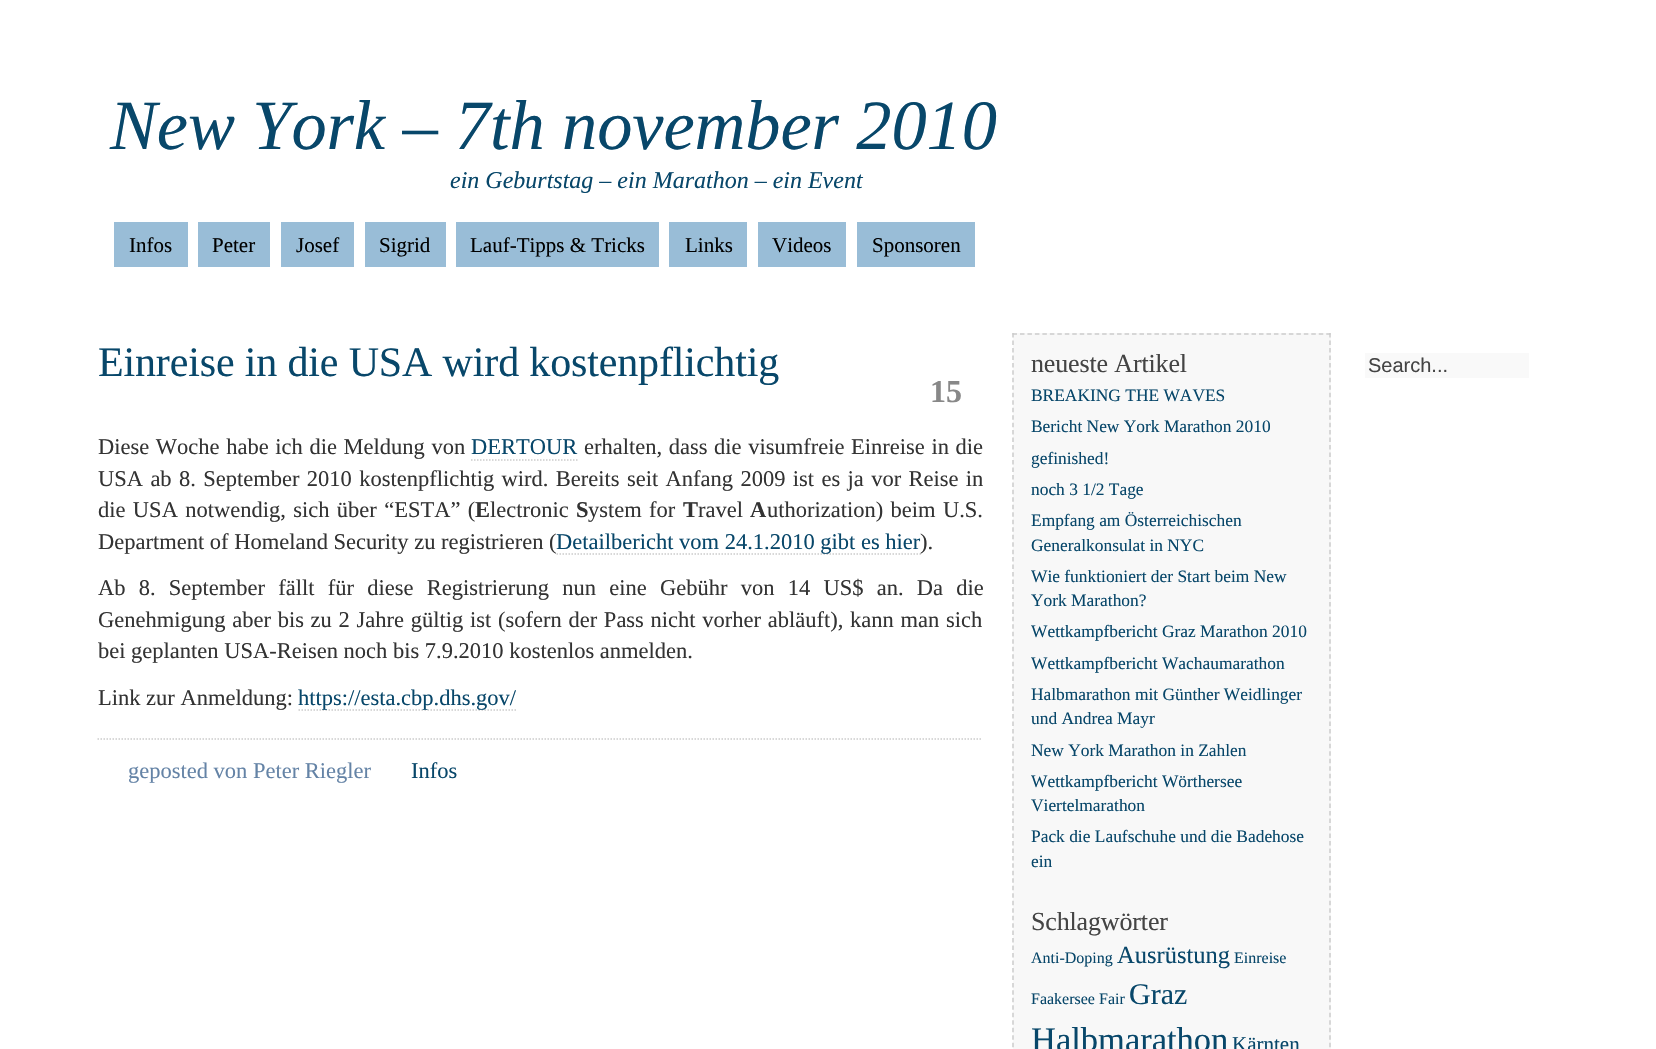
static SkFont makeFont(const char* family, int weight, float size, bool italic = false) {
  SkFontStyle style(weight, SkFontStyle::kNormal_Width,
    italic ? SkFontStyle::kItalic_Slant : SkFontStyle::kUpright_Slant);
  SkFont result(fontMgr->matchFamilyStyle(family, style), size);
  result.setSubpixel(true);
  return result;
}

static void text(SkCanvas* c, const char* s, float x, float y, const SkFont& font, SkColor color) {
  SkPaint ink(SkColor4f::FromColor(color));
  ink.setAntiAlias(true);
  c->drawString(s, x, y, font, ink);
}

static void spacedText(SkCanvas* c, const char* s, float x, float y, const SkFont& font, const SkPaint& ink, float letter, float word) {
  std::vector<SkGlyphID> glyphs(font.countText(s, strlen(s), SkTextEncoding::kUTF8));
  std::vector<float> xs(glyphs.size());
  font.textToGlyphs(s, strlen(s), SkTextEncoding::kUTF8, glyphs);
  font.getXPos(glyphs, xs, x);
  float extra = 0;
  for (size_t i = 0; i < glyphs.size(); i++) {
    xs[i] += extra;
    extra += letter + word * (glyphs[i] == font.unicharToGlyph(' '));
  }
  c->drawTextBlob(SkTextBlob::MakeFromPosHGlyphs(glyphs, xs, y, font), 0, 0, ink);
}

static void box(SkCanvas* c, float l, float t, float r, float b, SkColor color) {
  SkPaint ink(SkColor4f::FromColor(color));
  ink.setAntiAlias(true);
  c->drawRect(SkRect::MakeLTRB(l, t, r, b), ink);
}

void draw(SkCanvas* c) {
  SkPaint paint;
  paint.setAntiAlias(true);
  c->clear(0xffffffff);
  SkFont face1 = makeFont("Liberation Serif", 400, 70.5f, true);
  paint.setColor(0xff08476a);
  spacedText(c, "New York – 7th november 2010", 110, 149, face1, paint, -0.15f, 0);
  SkFont face2 = makeFont("Liberation Serif", 400, 24, true);
  text(c, "ein Geburtstag – ein Marathon – ein Event", 450, 188, face2, 0xff08476a);
  box(c, 114, 222, 188, 267, 0xff99bdd7);
  SkFont face3 = makeFont("Liberation Serif", 400, 21);
  text(c, "Infos", 129, 252, face3, 0xff000000);
  box(c, 198, 222, 270, 267, 0xff99bdd7);
  text(c, "Peter", 212, 252, face3, 0xff000000);
  box(c, 281, 222, 354, 267, 0xff99bdd7);
  text(c, "Josef", 296, 252, face3, 0xff000000);
  box(c, 365, 222, 446, 267, 0xff99bdd7);
  text(c, "Sigrid", 379, 252, face3, 0xff000000);
  box(c, 456, 222, 659, 267, 0xff99bdd7);
  text(c, "Lauf-Tipps & Tricks", 470, 252, face3, 0xff000000);
  box(c, 669, 222, 747, 267, 0xff99bdd7);
  text(c, "Links", 685, 252, face3, 0xff000000);
  box(c, 758, 222, 846, 267, 0xff99bdd7);
  text(c, "Videos", 772, 252, face3, 0xff000000);
  box(c, 857, 222, 975, 267, 0xff99bdd7);
  text(c, "Sponsoren", 872, 252, face3, 0xff000000);
  SkFont face4 = makeFont("Liberation Serif", 400, 42);
  spacedText(c, "Einreise in die USA wird kostenpflichtig", 98, 376, face4, paint, -0.15f, 0);
  SkFont face5 = makeFont("Liberation Serif", 700, 32);
  text(c, "15", 930, 402, face5, 0xff888888);
  SkFont face6 = makeFont("Liberation Serif", 400, 22.5f);
  paint.setColor(0xff333333);
  spacedText(c, "Diese Woche habe ich die Meldung von", 98, 454, face6, paint, 0, 1);
  text(c, "DERTOUR", 471, 454, face6, 0xff08476a);
  paint.setStyle(SkPaint::kStroke_Style);
  paint.setStrokeWidth(1.5f);
  paint.setColor(0xffcccccc);
  paint.setPathEffect(SkDashPathEffect::Make({{1.5f, 1.5f}}, 0));
  c->drawPath(SkPathBuilder().moveTo(471, 460).lineTo(577.5f, 460).detach(), paint);
  paint.setPathEffect(nullptr);
  paint.setStyle(SkPaint::kFill_Style);
  paint.setColor(0xff333333);
  spacedText(c, "erhalten, dass die visumfreie Einreise in die", 584, 454, face6, paint, 0, 1);
  spacedText(c, "USA ab 8. September 2010 kostenpflichtig wird. Bereits seit Anfang 2009 ist es ja vor Reise in", 98, 486, face6, paint, 0, 1.75f);
  spacedText(c, "die USA notwendig, sich über “ESTA” (", 98, 517, face6, paint, 0, 1.75f);
  SkFont face7 = makeFont("Liberation Serif", 700, 22.5f);
  text(c, "E", 475, 517, face7, 0xff333333);
  text(c, "lectronic", 490, 517, face6, 0xff333333);
  text(c, "S", 576, 517, face7, 0xff333333);
  spacedText(c, "ystem for", 588, 517, face6, paint, 0, 1.75f);
  text(c, "T", 683, 517, face7, 0xff333333);
  text(c, "ravel", 698, 517, face6, 0xff333333);
  text(c, "A", 750, 517, face7, 0xff333333);
  spacedText(c, "uthorization) beim U.S.", 767, 517, face6, paint, 0, 1.75f);
  text(c, "Department of Homeland Security zu registrieren (", 98, 549, face6, 0xff333333);
  paint.setStyle(SkPaint::kStroke_Style);
  paint.setColor(0xffcccccc);
  paint.setPathEffect(SkDashPathEffect::Make({{1.5f, 1.5f}}, 0));
  c->drawPath(SkPathBuilder().moveTo(556.5f, 554).lineTo(921, 554).detach(), paint);
  paint.setPathEffect(nullptr);
  text(c, "Detailbericht vom 24.1.2010 gibt es hier", 556, 549, face6, 0xff08476a);
  text(c, ").", 920, 549, face6, 0xff333333);
  paint.setStyle(SkPaint::kFill_Style);
  paint.setColor(0xff333333);
  spacedText(c, "Ab 8. September fällt für diese Registrierung nun eine Gebühr von 14 US$ an. Da die", 98, 595, face6, paint, 0, 7.6f);
  spacedText(c, "Genehmigung aber bis zu 2 Jahre gültig ist (sofern der Pass nicht vorher abläuft), kann man sich", 98, 627, face6, paint, 0, 1.1f);
  text(c, "bei geplanten USA-Reisen noch bis 7.9.2010 kostenlos anmelden.", 98, 658, face6, 0xff333333);
  text(c, "Link zur Anmeldung:", 98, 705, face6, 0xff333333);
  paint.setStyle(SkPaint::kStroke_Style);
  paint.setColor(0xffcccccc);
  paint.setPathEffect(SkDashPathEffect::Make({{1.5f, 1.5f}}, 0));
  c->drawPath(SkPathBuilder().moveTo(298.5f, 710).lineTo(516, 710).detach(), paint);
  paint.setPathEffect(nullptr);
  text(c, "https://esta.cbp.dhs.gov/", 298, 705, face6, 0xff08476a);
  paint.setPathEffect(SkDashPathEffect::Make({{1.5f, 1.5f}}, 0));
  c->drawPath(SkPathBuilder().moveTo(97.5f, 739).lineTo(982.5f, 739).detach(), paint);
  paint.setPathEffect(nullptr);
  text(c, "geposted von Peter Riegler", 128, 778, face6, 0xff6483a6);
  text(c, "Infos", 411, 778, face6, 0xff08476a);
  box(c, 1013, 333, 1331, 1049, 0xfff8f8f8);
  paint.setPathEffect(SkDashPathEffect::Make({{4.5f, 2.97f}}, 0));
  c->drawPath(SkPathBuilder().moveTo(1012.5f, 334).lineTo(1330.5f, 334).detach(), paint);
  paint.setPathEffect(nullptr);
  paint.setPathEffect(SkDashPathEffect::Make({{4.5f, 2.97f}}, 0));
  c->drawPath(SkPathBuilder().moveTo(1330, 333).lineTo(1330, 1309.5f).detach(), paint);
  paint.setPathEffect(nullptr);
  paint.setPathEffect(SkDashPathEffect::Make({{4.5f, 2.97f}}, 0));
  c->drawPath(SkPathBuilder().moveTo(1013, 333).lineTo(1013, 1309.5f).detach(), paint);
  paint.setPathEffect(nullptr);
  SkFont face8 = makeFont("Liberation Serif", 400, 26);
  paint.setStyle(SkPaint::kFill_Style);
  paint.setColor(0xff444444);
  spacedText(c, "neueste Artikel", 1031, 372, face8, paint, -0.15f, 0);
  SkFont face9 = makeFont("Liberation Serif", 400, 17.4f);
  text(c, "BREAKING THE WAVES", 1031, 401, face9, 0xff08476a);
  text(c, "Bericht New York Marathon 2010", 1031, 432, face9, 0xff08476a);
  text(c, "gefinished!", 1031, 464, face9, 0xff08476a);
  text(c, "noch 3 1/2 Tage", 1031, 495, face9, 0xff08476a);
  text(c, "Empfang am Österreichischen", 1031, 526, face9, 0xff08476a);
  text(c, "Generalkonsulat in NYC", 1031, 551, face9, 0xff08476a);
  text(c, "Wie funktioniert der Start beim New", 1031, 582, face9, 0xff08476a);
  text(c, "York Marathon?", 1031, 606, face9, 0xff08476a);
  text(c, "Wettkampfbericht Graz Marathon 2010", 1031, 637, face9, 0xff08476a);
  text(c, "Wettkampfbericht Wachaumarathon", 1031, 669, face9, 0xff08476a);
  text(c, "Halbmarathon mit Günther Weidlinger", 1031, 700, face9, 0xff08476a);
  text(c, "und Andrea Mayr", 1031, 724, face9, 0xff08476a);
  text(c, "New York Marathon in Zahlen", 1031, 756, face9, 0xff08476a);
  text(c, "Wettkampfbericht Wörthersee", 1031, 787, face9, 0xff08476a);
  text(c, "Viertelmarathon", 1031, 811, face9, 0xff08476a);
  text(c, "Pack die Laufschuhe und die Badehose", 1031, 842, face9, 0xff08476a);
  text(c, "ein", 1031, 867, face9, 0xff08476a);
  spacedText(c, "Schlagwörter", 1031, 930, face8, paint, -0.15f, 0);
  SkFont face10 = makeFont("Liberation Serif", 400, 16);
  text(c, "Anti-Doping", 1031, 963, face10, 0xff08476a);
  SkFont face11 = makeFont("Liberation Serif", 400, 24.5f);
  text(c, "Ausrüstung", 1117, 963, face11, 0xff08476a);
  text(c, "Einreise", 1234, 963, face10, 0xff08476a);
  text(c, "Faakersee", 1031, 1004, face10, 0xff08476a);
  text(c, "Fair", 1099, 1004, face10, 0xff08476a);
  SkFont face12 = makeFont("Liberation Serif", 400, 30);
  text(c, "Graz", 1129, 1004, face12, 0xff08476a);
  SkFont face13 = makeFont("Liberation Serif", 400, 34.5f);
  text(c, "Halbmarathon", 1031, 1051, face13, 0xff08476a);
  text(c, "Kärnten", 1232, 1051, face3, 0xff08476a);
  box(c, 1365, 353, 1529, 378, 0xfff9f9f9);
  SkFont face14 = makeFont("Liberation Sans", 400, 20);
  text(c, "Search...", 1368, 372, face14, 0xff444444);
}
